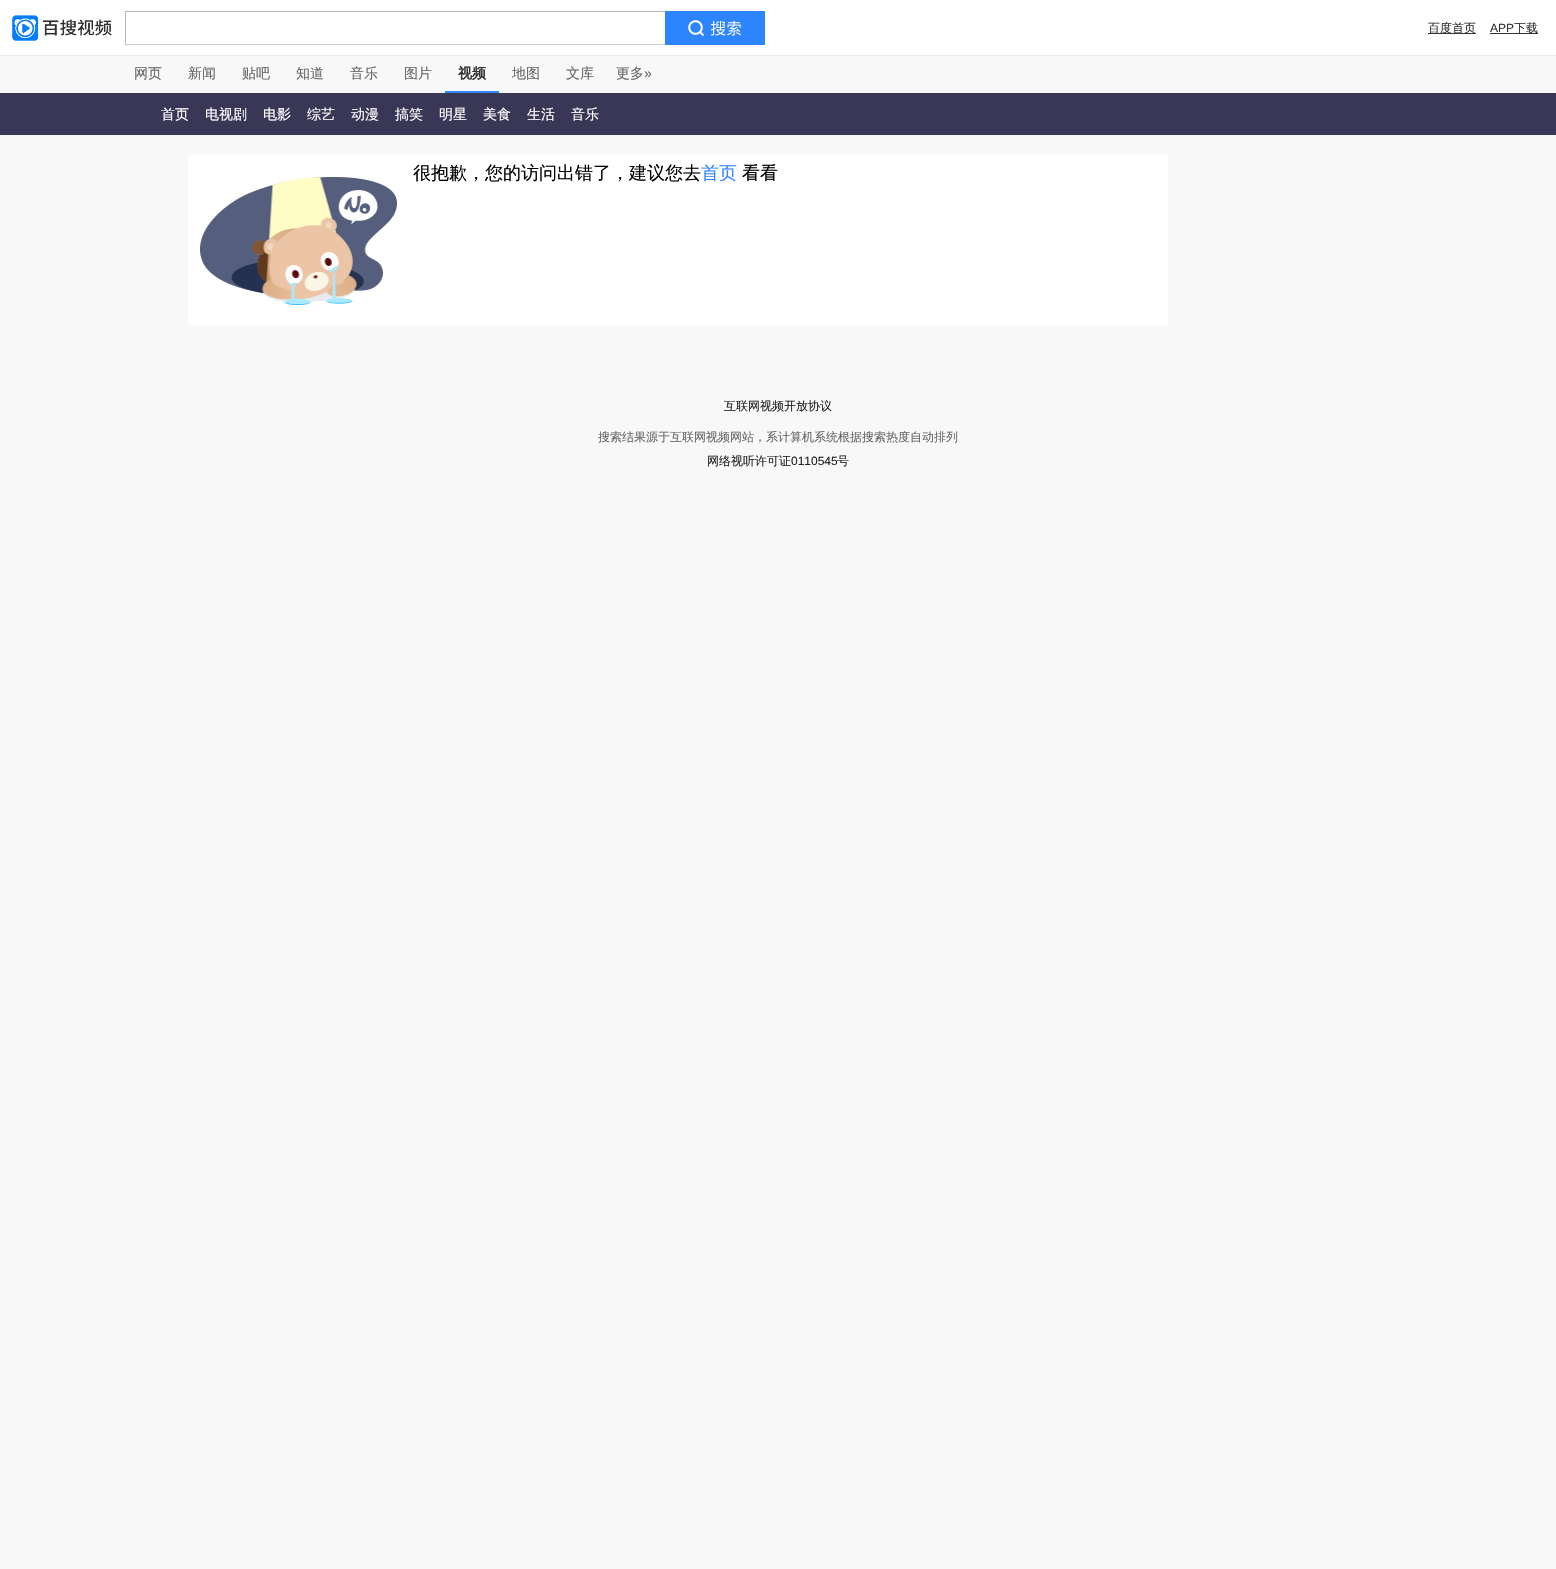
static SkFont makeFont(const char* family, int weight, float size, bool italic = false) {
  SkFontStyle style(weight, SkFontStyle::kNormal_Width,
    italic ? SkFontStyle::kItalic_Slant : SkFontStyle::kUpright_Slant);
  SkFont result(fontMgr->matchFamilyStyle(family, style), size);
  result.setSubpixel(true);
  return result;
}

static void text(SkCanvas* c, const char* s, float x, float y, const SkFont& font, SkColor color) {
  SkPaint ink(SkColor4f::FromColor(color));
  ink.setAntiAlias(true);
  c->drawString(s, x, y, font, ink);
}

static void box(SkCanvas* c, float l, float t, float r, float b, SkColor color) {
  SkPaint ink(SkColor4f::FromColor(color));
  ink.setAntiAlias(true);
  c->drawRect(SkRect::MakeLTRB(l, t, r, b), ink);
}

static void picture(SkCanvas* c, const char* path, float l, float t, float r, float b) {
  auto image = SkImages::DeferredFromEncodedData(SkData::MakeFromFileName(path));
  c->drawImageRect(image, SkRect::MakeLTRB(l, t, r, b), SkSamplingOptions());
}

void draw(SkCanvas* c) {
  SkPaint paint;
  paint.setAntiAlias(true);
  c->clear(0xfff8f8f8);
  box(c, 0, 0, 1556, 55, 0xffffffff);
  box(c, 0, 55, 1556, 56, 0xffebebeb);
  picture(c, "img_01.png", 12, 15, 112, 41);
  box(c, 125, 11, 665, 12, 0xffb8b8b8);
  box(c, 125, 44, 665, 45, 0xffcccccc);
  box(c, 125, 11, 126, 45, 0xffb8b8b8);
  picture(c, "img_02.png", 665, 11, 765, 45);
  box(c, 1428, 33, 1476, 34, 0xff333333);
  SkFont face1 = makeFont("WenQuanYi Zen Hei", 500, 12);
  text(c, "百度首页", 1428, 32, face1, 0xff323232);
  SkFont face2 = makeFont("Liberation Sans", 400, 12);
  text(c, "APP", 1490, 32, face2, 0xff323232);
  box(c, 1490, 33, 1538, 34, 0xff333333);
  text(c, "下载", 1514, 32, face1, 0xff323232);
  SkFont face3 = makeFont("WenQuanYi Zen Hei", 500, 14);
  text(c, "网页", 134, 78, face3, 0xff666666);
  text(c, "新闻", 188, 78, face3, 0xff666666);
  text(c, "贴吧", 242, 78, face3, 0xff666666);
  text(c, "知道", 296, 78, face3, 0xff666666);
  text(c, "音乐", 350, 78, face3, 0xff666666);
  text(c, "图片", 404, 78, face3, 0xff666666);
  box(c, 445, 91, 499, 93, 0xff3388ff);
  SkFont face4 = makeFont("WenQuanYi Zen Hei", 700, 14);
  text(c, "视频", 458, 78, face4, 0xff323232);
  text(c, "地图", 512, 78, face3, 0xff666666);
  text(c, "文库", 566, 78, face3, 0xff666666);
  text(c, "更多", 616, 78, face3, 0xff666666);
  SkFont face5 = makeFont("Liberation Sans", 400, 14);
  text(c, "»", 644, 78, face5, 0xff666666);
  box(c, 0, 93, 1556, 135, 0xff393755);
  text(c, "首页", 161, 119, face3, 0xffffffff);
  text(c, "电视剧", 205, 119, face3, 0xffffffff);
  text(c, "电影", 263, 119, face3, 0xffffffff);
  text(c, "综艺", 307, 119, face3, 0xffffffff);
  text(c, "动漫", 351, 119, face3, 0xffffffff);
  text(c, "搞笑", 395, 119, face3, 0xffffffff);
  text(c, "明星", 439, 119, face3, 0xffffffff);
  text(c, "美食", 483, 119, face3, 0xffffffff);
  text(c, "生活", 527, 119, face3, 0xffffffff);
  text(c, "音乐", 571, 119, face3, 0xffffffff);
  box(c, 188, 155, 1168, 325, 0xffffffff);
  SkFont face6 = makeFont("WenQuanYi Zen Hei", 500, 18);
  text(c, "很抱歉，您的访问出错了，建议您去", 413, 179, face6, 0xff000000);
  text(c, "首页", 701, 179, face6, 0xff3385ff);
  text(c, "看看", 742, 179, face6, 0xff000000);
  picture(c, "img_03.png", 200, 177, 397, 305);
  text(c, "互联网视频开放协议", 724, 410, face1, 0xff222222);
  text(c, "搜索结果源于互联网视频网站，系计算机系统根据搜索热度自动排列", 598, 441, face1, 0xff666666);
  text(c, "网络视听许可证", 707, 465, face1, 0xff222222);
  text(c, "0110545", 791, 465, face2, 0xff222222);
  text(c, "号", 837, 465, face1, 0xff222222);
}
